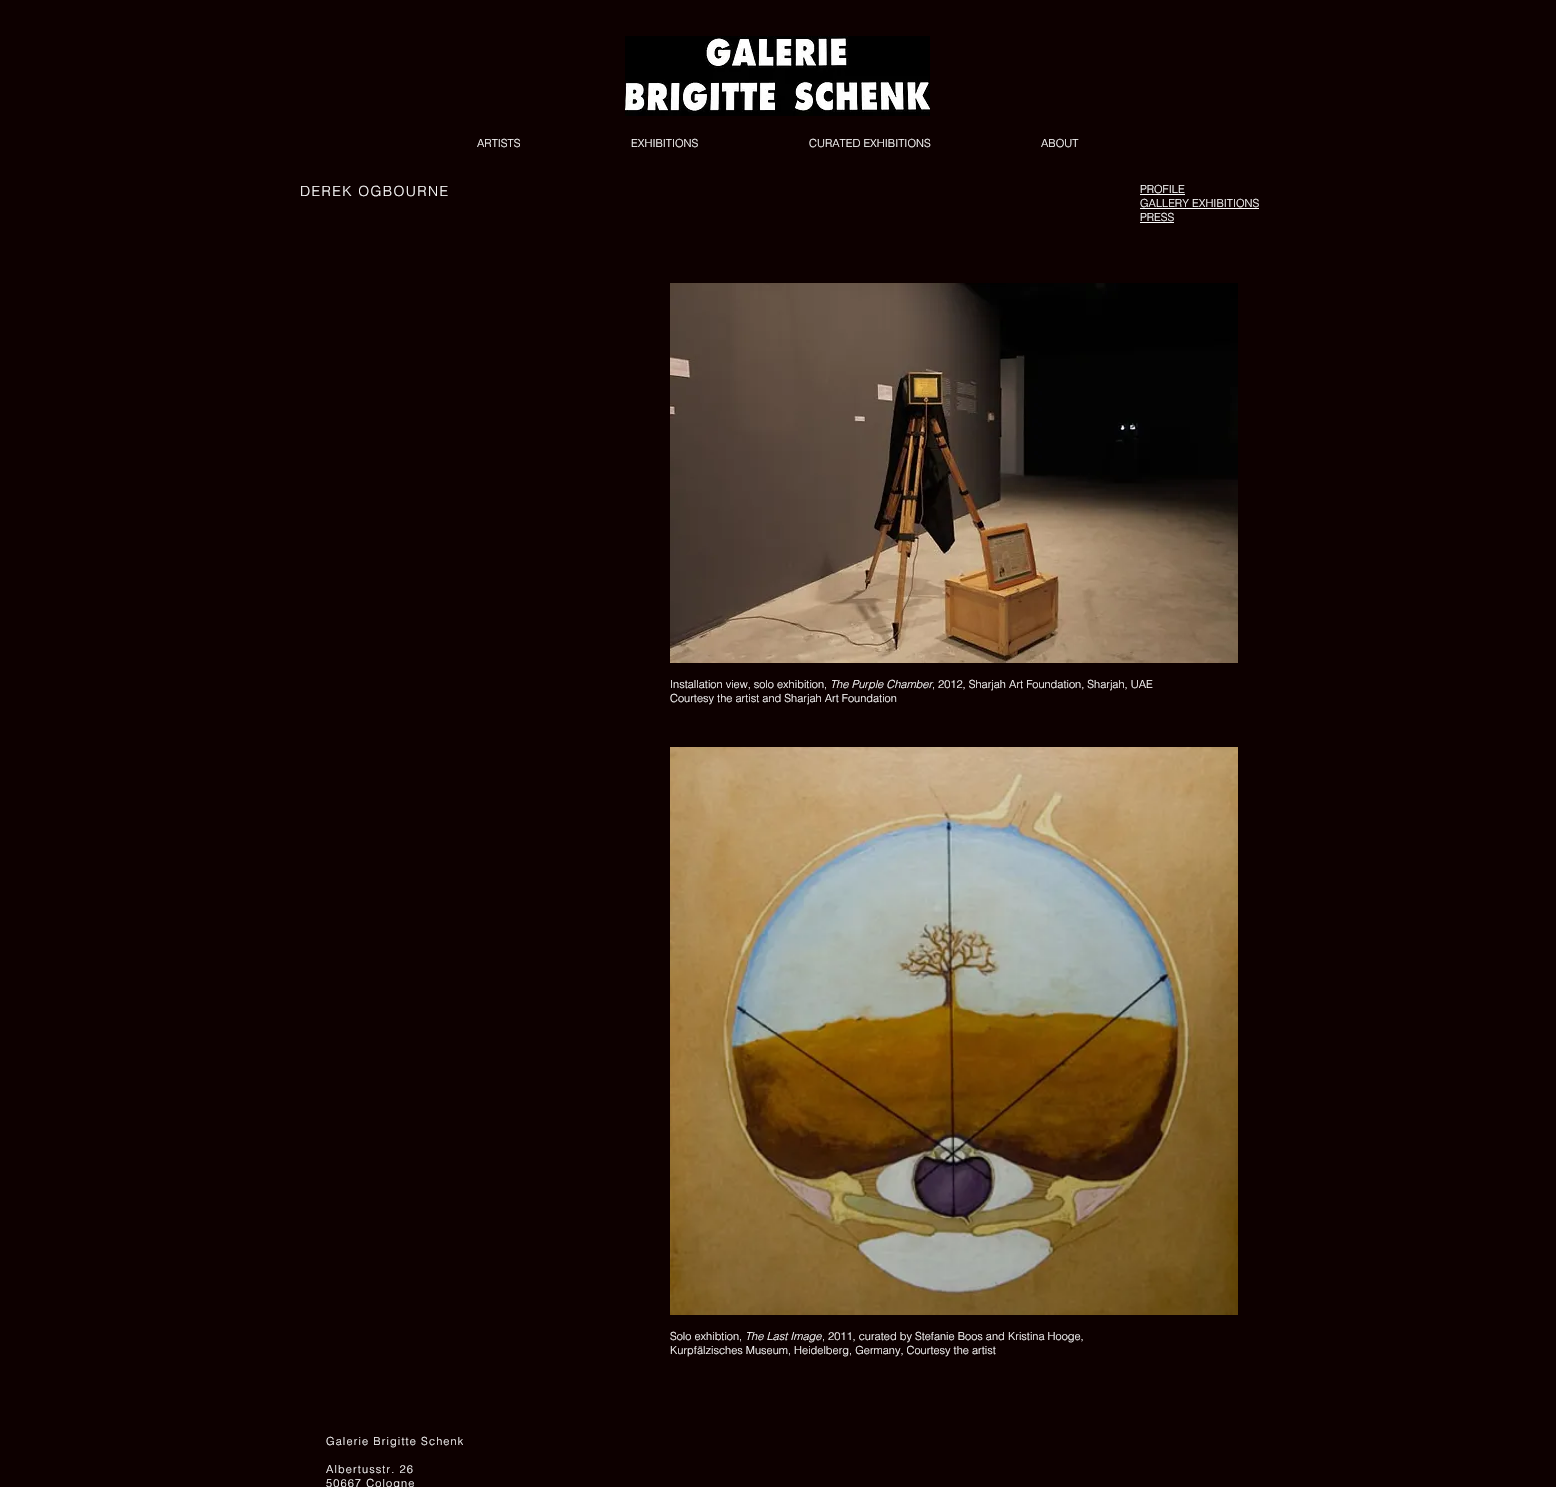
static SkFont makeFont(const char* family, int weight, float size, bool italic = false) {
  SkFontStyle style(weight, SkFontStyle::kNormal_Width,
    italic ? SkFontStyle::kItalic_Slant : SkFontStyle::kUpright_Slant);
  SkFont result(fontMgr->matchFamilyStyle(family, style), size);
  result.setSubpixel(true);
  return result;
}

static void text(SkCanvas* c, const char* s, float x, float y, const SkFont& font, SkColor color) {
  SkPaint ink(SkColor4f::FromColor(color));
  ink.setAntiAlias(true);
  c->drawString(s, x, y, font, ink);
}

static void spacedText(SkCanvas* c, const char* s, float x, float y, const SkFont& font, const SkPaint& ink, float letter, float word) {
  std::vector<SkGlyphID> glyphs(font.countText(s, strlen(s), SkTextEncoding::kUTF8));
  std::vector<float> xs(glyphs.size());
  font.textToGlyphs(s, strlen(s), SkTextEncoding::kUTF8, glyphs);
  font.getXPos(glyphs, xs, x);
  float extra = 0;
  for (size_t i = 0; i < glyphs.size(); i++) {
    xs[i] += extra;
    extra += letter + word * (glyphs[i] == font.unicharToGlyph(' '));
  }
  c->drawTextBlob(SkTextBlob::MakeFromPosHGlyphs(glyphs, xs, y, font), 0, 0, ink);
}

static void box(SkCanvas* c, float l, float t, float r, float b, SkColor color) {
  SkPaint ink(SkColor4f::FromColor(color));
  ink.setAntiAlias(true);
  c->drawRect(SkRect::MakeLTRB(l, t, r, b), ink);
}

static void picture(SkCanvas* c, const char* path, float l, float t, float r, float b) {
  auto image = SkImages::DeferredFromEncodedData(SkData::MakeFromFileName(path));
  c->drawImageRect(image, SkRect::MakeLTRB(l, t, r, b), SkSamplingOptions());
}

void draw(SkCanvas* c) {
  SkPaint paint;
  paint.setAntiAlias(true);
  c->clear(0xff0d0000);
  picture(c, "img_01.png", 625, 36, 930, 116);
  SkFont face1 = makeFont("helvetica", 300, 11);
  text(c, "ARTISTS", 477, 147, face1, 0xffffffff);
  text(c, "EXHIBITIONS", 631, 147, face1, 0xffffffff);
  text(c, "CURATED EXHIBITIONS", 809, 147, face1, 0xffffffff);
  text(c, "ABOUT", 1041, 147, face1, 0xffffffff);
  SkFont face2 = makeFont("helvetica", 300, 14);
  paint.setColor(0xffffffff);
  spacedText(c, "DEREK OGBOURNE", 300, 196, face2, paint, 1.4f, 0);
  text(c, "PROFILE", 1140, 193, face1, 0xffffffff);
  box(c, 1140, 194, 1185, 195, 0xffffffff);
  text(c, "GALLERY EXHIBITIONS", 1140, 207, face1, 0xffffffff);
  box(c, 1140, 208, 1259, 209, 0xffffffff);
  text(c, "PRESS", 1140, 221, face1, 0xffffffff);
  box(c, 1140, 222, 1174, 223, 0xffffffff);
  picture(c, "img_02.png", 670, 283, 1238, 663);
  text(c, "Installation view, solo exhibition,", 670, 688, face1, 0xffffffff);
  SkFont face3 = makeFont("helvetica", 300, 11, true);
  text(c, "The Purple Chamber", 830, 688, face3, 0xffffffff);
  text(c, ", 2012, Sharjah Art Foundation, Sharjah, UAE", 932, 688, face1, 0xffffffff);
  text(c, "Courtesy the artist and Sharjah Art Foundation", 670, 702, face1, 0xffffffff);
  picture(c, "img_03.png", 670, 747, 1238, 1315);
  text(c, "Solo exhibtion,", 670, 1340, face1, 0xffffffff);
  text(c, "The Last Image", 745, 1340, face3, 0xffffffff);
  text(c, ", 2011, curated by Stefanie Boos and Kristina Hooge,", 822, 1340, face1, 0xffffffff);
  text(c, "Kurpfälzisches Museum, Heidelberg, Germany, Courtesy the artist", 670, 1354, face1, 0xffffffff);
  spacedText(c, "Galerie Brigitte Schenk", 326, 1445, face1, paint, 1.1f, 0);
  spacedText(c, "Albertusstr. 26", 326, 1473, face1, paint, 1.1f, 0);
  spacedText(c, "50667 Cologne", 326, 1487, face1, paint, 1.1f, 0);
}
